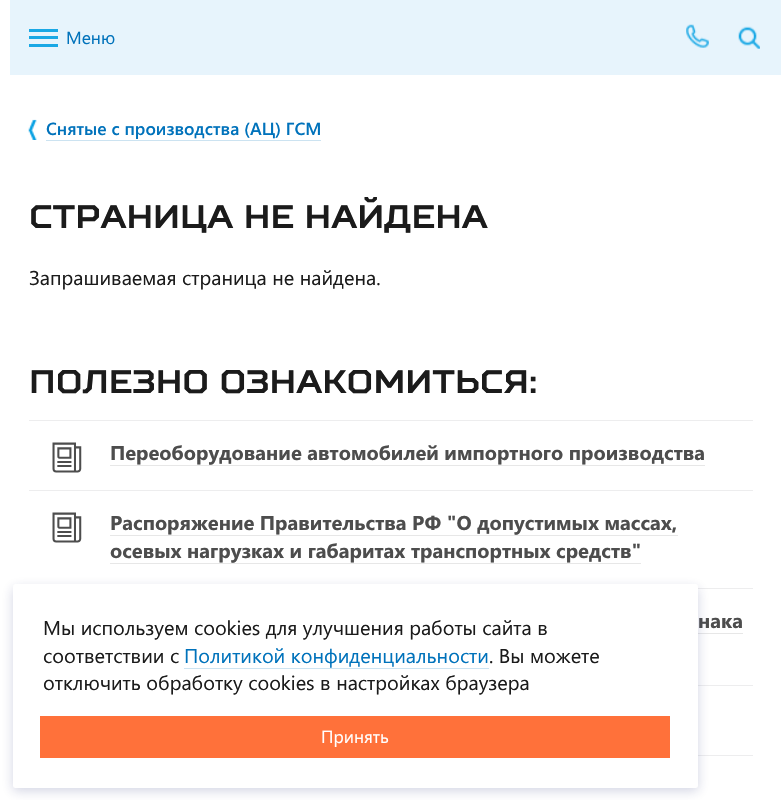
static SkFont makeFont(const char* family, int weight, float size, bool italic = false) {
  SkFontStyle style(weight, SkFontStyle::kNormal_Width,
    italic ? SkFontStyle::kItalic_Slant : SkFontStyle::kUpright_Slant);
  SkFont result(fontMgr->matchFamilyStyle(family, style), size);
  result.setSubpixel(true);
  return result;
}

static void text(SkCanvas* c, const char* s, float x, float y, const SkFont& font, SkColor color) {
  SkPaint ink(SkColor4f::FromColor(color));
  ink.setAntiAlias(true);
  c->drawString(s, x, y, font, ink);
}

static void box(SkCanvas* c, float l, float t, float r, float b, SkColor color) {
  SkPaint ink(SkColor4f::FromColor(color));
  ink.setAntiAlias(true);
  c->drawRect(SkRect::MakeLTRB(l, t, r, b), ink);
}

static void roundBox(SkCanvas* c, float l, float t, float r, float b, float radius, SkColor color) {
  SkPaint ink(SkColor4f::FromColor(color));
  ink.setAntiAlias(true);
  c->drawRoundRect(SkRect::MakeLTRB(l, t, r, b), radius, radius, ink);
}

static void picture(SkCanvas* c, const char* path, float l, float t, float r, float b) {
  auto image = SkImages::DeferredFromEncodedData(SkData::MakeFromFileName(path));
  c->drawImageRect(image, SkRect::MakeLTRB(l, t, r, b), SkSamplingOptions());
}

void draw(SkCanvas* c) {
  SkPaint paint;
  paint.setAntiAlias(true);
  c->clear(0xffffffff);
  box(c, 10, 0, 781, 75, 0xffe7f4fc);
  box(c, 29, 36, 58, 39, 0xff1aa8e5);
  box(c, 29, 29, 58, 32, 0xff1aa8e5);
  box(c, 29, 44, 58, 47, 0xff1aa8e5);
  SkFont face1 = makeFont("Segoe UI", 400, 17.5f);
  text(c, "Меню", 66, 44, face1, 0xff0072bb);
  picture(c, "img_01.png", 686, 24, 709, 48);
  picture(c, "img_02.png", 738, 26, 760, 49);
  picture(c, "img_03.png", 28, 119, 37, 140);
  SkFont face2 = makeFont("Segoe UI", 600, 17.5f);
  text(c, "Снятые с производства (АЦ) ГСМ", 46, 135, face2, 0xff0072bb);
  box(c, 46, 140, 321, 141, 0xffcce3f1);
  SkFont face3 = makeFont("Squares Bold", 700, 32.5f);
  text(c, "СТРАНИЦА НЕ НАЙДЕНА", 29, 228, face3, 0xff1b1b1b);
  SkFont face4 = makeFont("Segoe UI", 400, 20);
  text(c, "Запрашиваемая страница не найдена.", 29, 285, face4, 0xff1b1b1b);
  text(c, "Полезно ознакомиться:", 29, 393, face3, 0xff1b1b1b);
  box(c, 29, 420, 753, 421, 0xffededee);
  box(c, 29, 490, 753, 491, 0xffededee);
  picture(c, "img_04.png", 52, 442, 82, 473);
  SkFont face5 = makeFont("Segoe UI", 700, 20);
  text(c, "Переоборудование автомобилей импортного производства", 110, 460, face5, 0xff4d4d4d);
  box(c, 110, 465, 705, 466, 0xffe7e7e7);
  box(c, 698, 588, 753, 589, 0xffededee);
  picture(c, "img_04.png", 52, 512, 82, 543);
  text(c, "Распоряжение Правительства РФ \"О допустимых массах,", 110, 530, face5, 0xff4d4d4d);
  box(c, 110, 535, 678, 536, 0xffe7e7e7);
  text(c, "осевых нагрузках и габаритах транспортных средств\"", 110, 558, face5, 0xff4d4d4d);
  box(c, 110, 563, 641, 564, 0xffe7e7e7);
  box(c, 698, 685, 753, 686, 0xffededee);
  text(c, "нака", 698, 628, face5, 0xff4d4d4d);
  box(c, 698, 633, 743, 634, 0xffe7e7e7);
  box(c, 698, 755, 753, 756, 0xffededee);
  paint.setColor(0x331e2975);
  paint.setMaskFilter(SkMaskFilter::MakeBlur(kNormal_SkBlurStyle, 6));
  c->drawRoundRect(SkRect::MakeLTRB(13, 588, 698, 791), 2.5f, 2.5f, paint);
  paint.setMaskFilter(nullptr);
  roundBox(c, 13, 584, 698, 788, 2.5f, 0xffffffff);
  text(c, "Мы используем cookies для улучшения работы сайта в", 43, 635, face4, 0xff1b1b1b);
  text(c, "соответствии с", 43, 663, face4, 0xff1b1b1b);
  text(c, "Политикой конфиденциальности", 184, 663, face4, 0xff0072bb);
  box(c, 184, 668, 489, 669, 0xffcce3f1);
  text(c, ". Вы можете", 489, 663, face4, 0xff1b1b1b);
  text(c, "отключить обработку cookies в настройках браузера", 43, 690, face4, 0xff1b1b1b);
  box(c, 40, 716, 670, 758, 0xffff713a);
  text(c, "Принять", 321, 743, face1, 0xffffffff);
}
